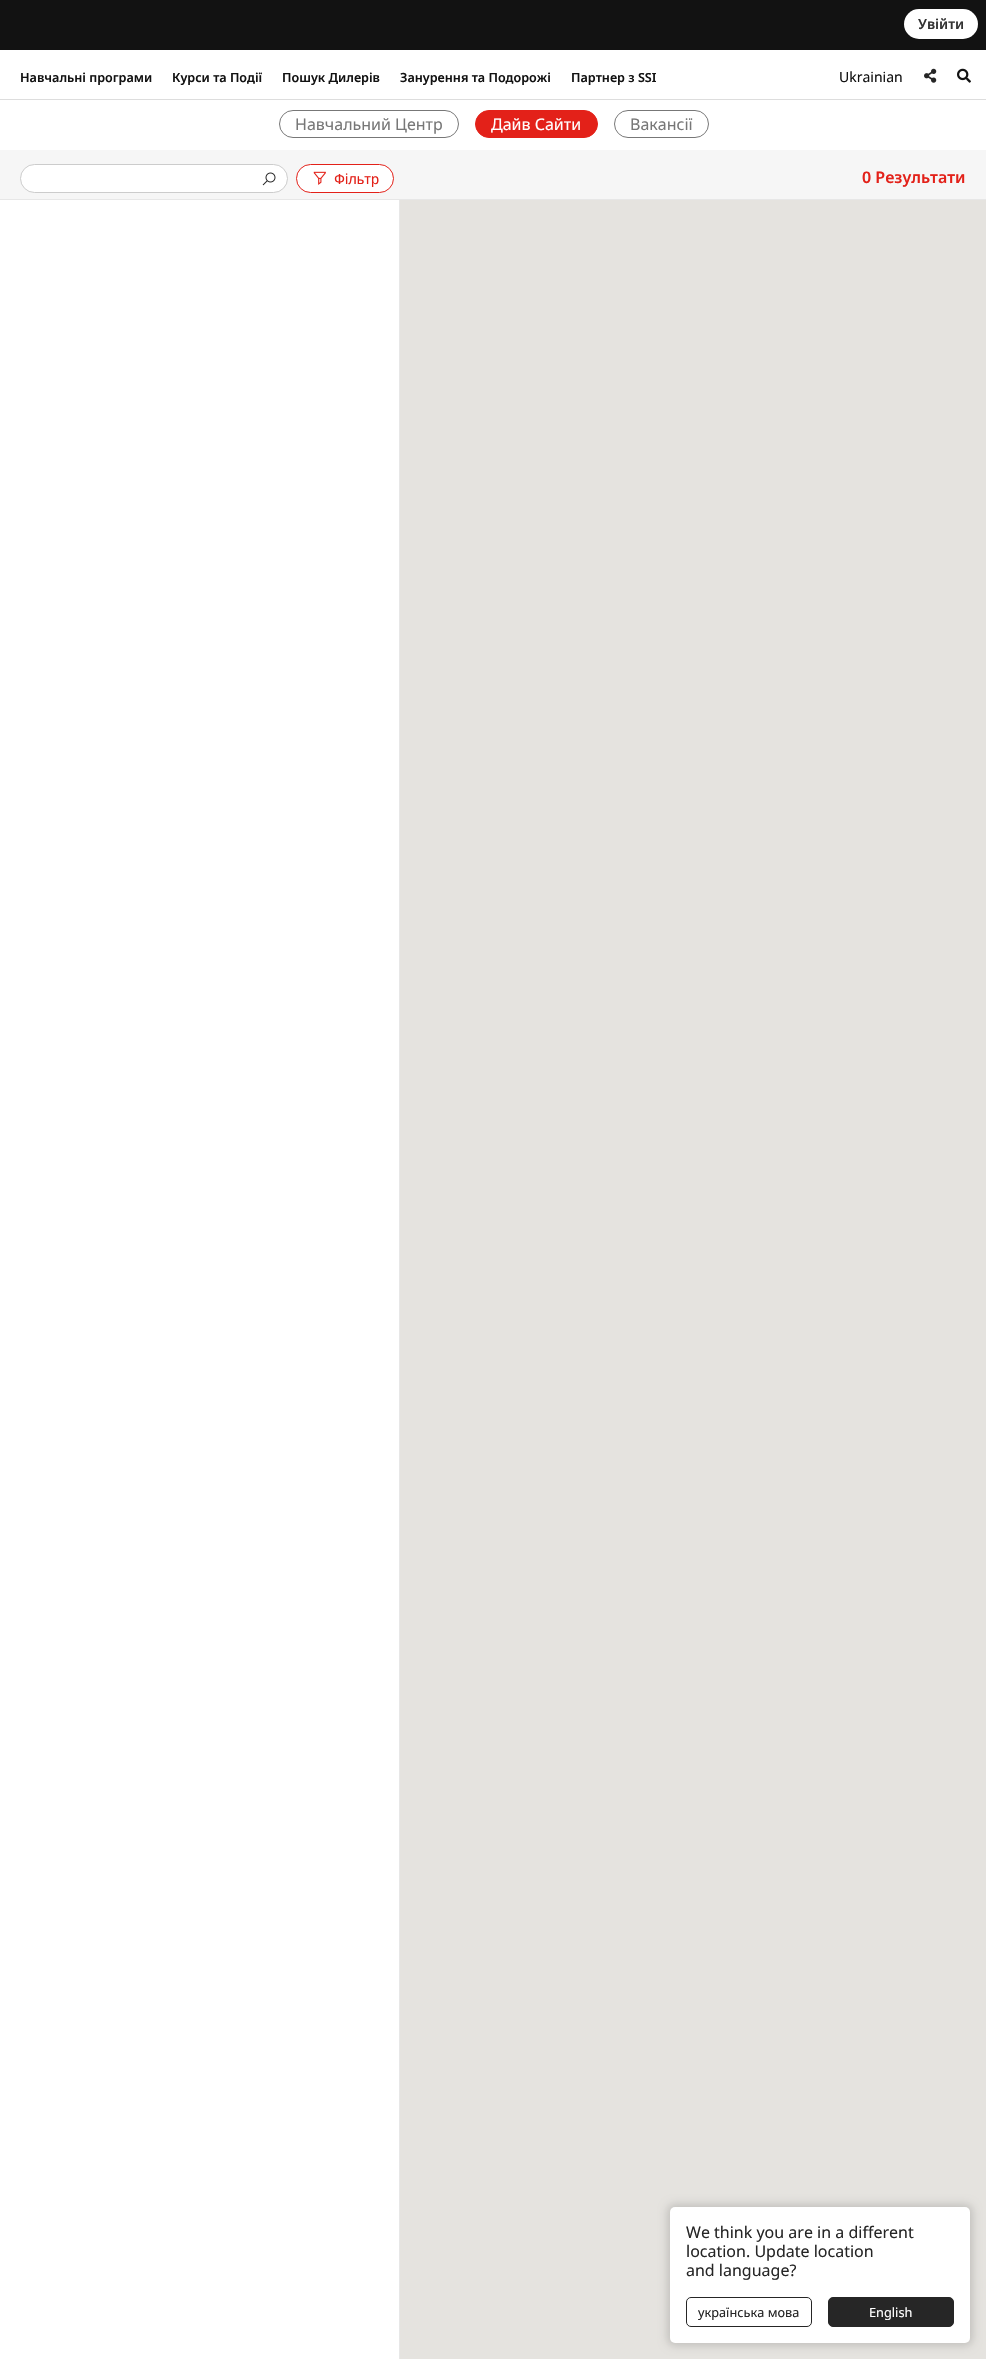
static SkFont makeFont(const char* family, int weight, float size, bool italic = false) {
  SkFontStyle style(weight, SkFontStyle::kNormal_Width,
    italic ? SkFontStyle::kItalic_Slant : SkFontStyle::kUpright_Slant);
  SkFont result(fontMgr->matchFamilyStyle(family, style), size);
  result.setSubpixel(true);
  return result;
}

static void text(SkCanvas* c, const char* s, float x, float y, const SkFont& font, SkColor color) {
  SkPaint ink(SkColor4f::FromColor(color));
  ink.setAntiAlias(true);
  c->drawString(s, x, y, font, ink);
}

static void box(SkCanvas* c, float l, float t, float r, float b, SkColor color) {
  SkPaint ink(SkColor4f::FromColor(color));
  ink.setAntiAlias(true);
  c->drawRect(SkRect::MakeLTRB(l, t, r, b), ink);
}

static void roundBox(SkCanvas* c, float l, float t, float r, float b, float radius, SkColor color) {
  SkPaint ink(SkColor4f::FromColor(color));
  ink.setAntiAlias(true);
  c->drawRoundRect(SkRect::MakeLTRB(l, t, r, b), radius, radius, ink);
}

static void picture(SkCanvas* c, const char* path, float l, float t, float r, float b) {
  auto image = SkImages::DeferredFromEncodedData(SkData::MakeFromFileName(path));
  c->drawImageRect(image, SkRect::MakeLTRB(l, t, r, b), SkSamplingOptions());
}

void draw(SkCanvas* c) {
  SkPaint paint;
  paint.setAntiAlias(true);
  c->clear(0xffffffff);
  box(c, 0, 0, 986, 50, 0xff121212);
  roundBox(c, 904, 9, 978, 39, 15, 0xffffffff);
  SkFont face1 = makeFont("Noto Sans", 600, 14);
  text(c, "Увійти", 918, 29, face1, 0xff333333);
  box(c, 0, 99, 986, 100, 0xffdddddd);
  SkFont face2 = makeFont("Noto Sans", 600, 12.6f);
  text(c, "Навчальні програми", 20, 82, face2, 0xff121212);
  text(c, "Курси та Події", 172, 82, face2, 0xff121212);
  text(c, "Пошук Дилерів", 282, 82, face2, 0xff121212);
  text(c, "Занурення та Подорожі", 400, 82, face2, 0xff121212);
  text(c, "Партнер з SSI", 571, 82, face2, 0xff121212);
  SkFont face3 = makeFont("Noto Sans", 400, 14);
  text(c, "Ukrainian", 839, 82, face3, 0xff121212);
  picture(c, "img_01.png", 924, 68, 937, 83);
  picture(c, "img_02.png", 957, 68, 971, 83);
  paint.setStyle(SkPaint::kStroke_Style);
  paint.setStrokeWidth(1);
  paint.setColor(0xff777777);
  c->drawRoundRect(SkRect::MakeLTRB(279.5f, 110.5f, 458.5f, 137.5f), 13.5f, 13.5f, paint);
  SkFont face4 = makeFont("Noto Sans", 400, 16);
  text(c, "Навчальний Центр", 295, 130, face4, 0xff777777);
  paint.setStyle(SkPaint::kFill_Style);
  paint.setColor(0xffe32119);
  c->drawRoundRect(SkRect::MakeLTRB(475.5f, 110.5f, 597.5f, 137.5f), 13.5f, 13.5f, paint);
  paint.setStyle(SkPaint::kStroke_Style);
  c->drawRoundRect(SkRect::MakeLTRB(475.5f, 110.5f, 597.5f, 137.5f), 13.5f, 13.5f, paint);
  text(c, "Дайв Сайти", 491, 130, face4, 0xffffffff);
  paint.setColor(0xff777777);
  c->drawRoundRect(SkRect::MakeLTRB(614.5f, 110.5f, 708.5f, 137.5f), 13.5f, 13.5f, paint);
  text(c, "Вакансії", 630, 130, face4, 0xff777777);
  box(c, 0, 150, 986, 199, 0xfff6f6f6);
  box(c, 0, 199, 986, 200, 0xffe7e7e7);
  paint.setStyle(SkPaint::kFill_Style);
  paint.setColor(0xffffffff);
  c->drawRoundRect(SkRect::MakeLTRB(20.5f, 164.5f, 287.5f, 192.5f), 14, 14, paint);
  paint.setStyle(SkPaint::kStroke_Style);
  paint.setColor(0xffcccccc);
  c->drawRoundRect(SkRect::MakeLTRB(20.5f, 164.5f, 287.5f, 192.5f), 14, 14, paint);
  picture(c, "img_03.png", 262, 172, 276, 186);
  paint.setStyle(SkPaint::kFill_Style);
  paint.setColor(0xffffffff);
  c->drawRoundRect(SkRect::MakeLTRB(296.5f, 164.5f, 393.5f, 192.5f), 14, 14, paint);
  paint.setStyle(SkPaint::kStroke_Style);
  paint.setColor(0xffe32119);
  c->drawRoundRect(SkRect::MakeLTRB(296.5f, 164.5f, 393.5f, 192.5f), 14, 14, paint);
  picture(c, "img_04.png", 313, 171, 326, 185);
  SkFont face5 = makeFont("Liberation Sans", 400, 14.5f);
  text(c, "Фільтр", 334, 184, face5, 0xffe32119);
  box(c, 399, 200, 400, 2359, 0xffe7e7e7);
  SkFont face6 = makeFont("Noto Sans", 600, 16);
  text(c, "0 Результати", 862, 183, face6, 0xffe32119);
  box(c, 400, 200, 986, 2359, 0xffe5e3df);
  paint.setStyle(SkPaint::kFill_Style);
  paint.setColor(0x26000000);
  paint.setMaskFilter(SkMaskFilter::MakeBlur(kNormal_SkBlurStyle, 4.5f));
  c->drawRoundRect(SkRect::MakeLTRB(667, 2204, 973, 2346), 8, 8, paint);
  paint.setMaskFilter(nullptr);
  roundBox(c, 670, 2207, 970, 2343, 5, 0xffffffff);
  text(c, "We think you are in a different", 686, 2238, face4, 0xff262626);
  text(c, "location. Update location", 686, 2257, face4, 0xff262626);
  text(c, "and language?", 686, 2276, face4, 0xff262626);
  paint.setStyle(SkPaint::kStroke_Style);
  paint.setColor(0xff262626);
  c->drawRoundRect(SkRect::MakeLTRB(686.5f, 2297.5f, 811.5f, 2326.5f), 4.5f, 4.5f, paint);
  SkFont face7 = makeFont("Noto Sans", 400, 12.75f);
  text(c, "українська мова", 698, 2317, face7, 0xff262626);
  paint.setStyle(SkPaint::kFill_Style);
  c->drawRoundRect(SkRect::MakeLTRB(828.5f, 2297.5f, 953.5f, 2326.5f), 4.5f, 4.5f, paint);
  paint.setStyle(SkPaint::kStroke_Style);
  c->drawRoundRect(SkRect::MakeLTRB(828.5f, 2297.5f, 953.5f, 2326.5f), 4.5f, 4.5f, paint);
  text(c, "English", 869, 2317, face7, 0xffffffff);
}
